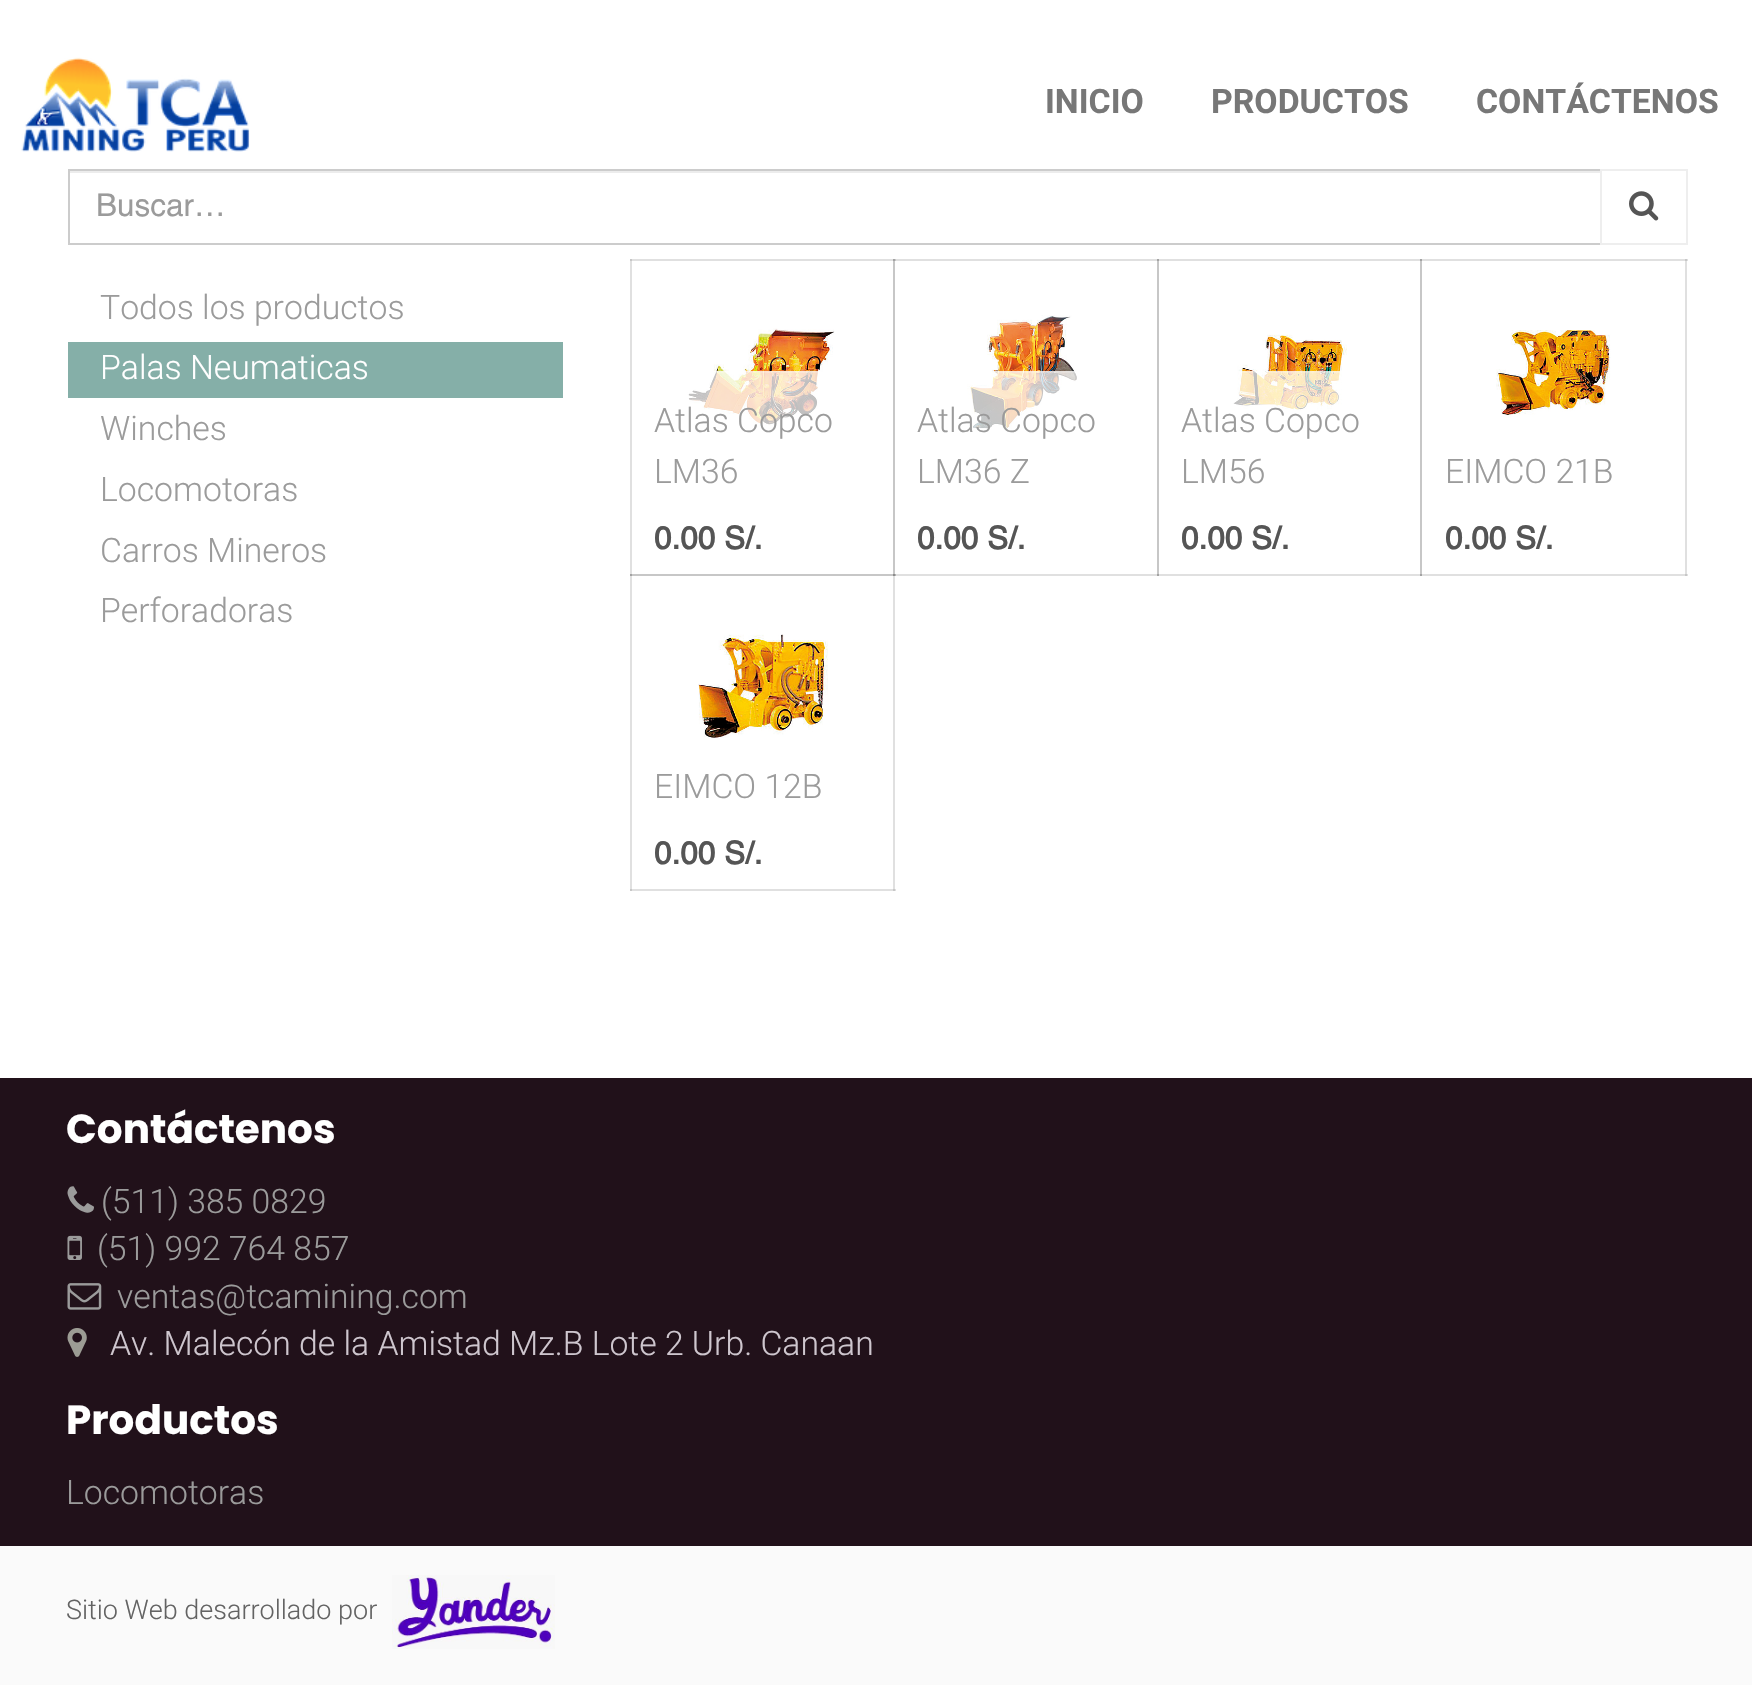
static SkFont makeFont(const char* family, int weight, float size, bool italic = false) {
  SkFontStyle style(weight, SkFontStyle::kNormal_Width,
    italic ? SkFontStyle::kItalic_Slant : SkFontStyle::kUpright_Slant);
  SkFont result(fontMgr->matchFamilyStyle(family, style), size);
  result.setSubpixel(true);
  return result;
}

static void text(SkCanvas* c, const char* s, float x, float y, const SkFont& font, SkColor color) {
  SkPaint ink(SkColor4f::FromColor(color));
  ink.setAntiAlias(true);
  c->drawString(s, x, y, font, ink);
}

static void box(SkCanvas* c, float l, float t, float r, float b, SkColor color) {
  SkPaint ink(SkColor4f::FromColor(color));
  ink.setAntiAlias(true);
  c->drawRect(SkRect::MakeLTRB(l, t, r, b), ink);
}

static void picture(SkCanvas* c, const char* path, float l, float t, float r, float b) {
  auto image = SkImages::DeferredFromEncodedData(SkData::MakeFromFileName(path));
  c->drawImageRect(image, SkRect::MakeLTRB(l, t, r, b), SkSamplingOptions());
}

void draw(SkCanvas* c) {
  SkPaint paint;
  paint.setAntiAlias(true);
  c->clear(0xffffffff);
  box(c, 630, 259, 632, 891, 0xffe0e0e0);
  box(c, 630, 259, 896, 261, 0xffe0e0e0);
  box(c, 630, 259, 632, 261, 0xffc7c7c7);
  box(c, 893, 259, 895, 576, 0xffc7c7c7);
  box(c, 893, 574, 1159, 576, 0xffe0e0e0);
  box(c, 893, 259, 1159, 261, 0xffe0e0e0);
  box(c, 893, 259, 896, 261, 0xffc7c7c7);
  box(c, 893, 259, 895, 261, 0xffa3a3a3);
  box(c, 1157, 259, 1159, 576, 0xffc7c7c7);
  box(c, 1157, 574, 1422, 576, 0xffe0e0e0);
  box(c, 1157, 574, 1159, 576, 0xffa3a3a3);
  box(c, 1157, 259, 1422, 261, 0xffe0e0e0);
  box(c, 1157, 259, 1159, 261, 0xffa3a3a3);
  box(c, 1420, 259, 1422, 576, 0xffc7c7c7);
  box(c, 1420, 574, 1688, 576, 0xffe0e0e0);
  box(c, 1420, 574, 1422, 576, 0xffa3a3a3);
  box(c, 1685, 259, 1687, 576, 0xffe0e0e0);
  box(c, 1685, 574, 1687, 576, 0xffc7c7c7);
  box(c, 630, 889, 896, 891, 0xffe0e0e0);
  box(c, 630, 889, 632, 891, 0xffc7c7c7);
  box(c, 893, 574, 895, 891, 0xffe0e0e0);
  box(c, 893, 889, 895, 891, 0xffc7c7c7);
  picture(c, "img_01.png", 21, 57, 250, 152);
  SkFont face1 = makeFont("Roboto", 700, 33.75f);
  text(c, "INICIO", 1045, 113, face1, 0xff777777);
  text(c, "PRODUCTOS", 1211, 113, face1, 0xff777777);
  text(c, "CONTÁCTENOS", 1476, 113, face1, 0xff777777);
  box(c, 70, 171, 1600, 173, 0xffececec);
  paint.setStyle(SkPaint::kStroke_Style);
  paint.setStrokeWidth(2);
  paint.setColor(0xffcccccc);
  c->drawRect(SkRect::MakeLTRB(69, 170, 1601, 244), paint);
  SkFont face2 = makeFont("Helvetica", 400, 31.5f);
  text(c, "Buscar…", 96, 216, face2, 0xff9b9b9b);
  paint.setColor(0xffeeeeee);
  c->drawRect(SkRect::MakeLTRB(1601, 170, 1687, 244), paint);
  picture(c, "img_02.png", 1629, 191, 1659, 221);
  SkFont face3 = makeFont("Roboto", 300, 33.75f);
  text(c, "Todos los productos", 100, 319, face3, 0xff9b9b9b);
  box(c, 68, 342, 563, 398, 0xff85afa8);
  text(c, "Palas Neumaticas", 100, 379, face3, 0xffffffff);
  text(c, "Winches", 100, 440, face3, 0xff9b9b9b);
  text(c, "Locomotoras", 100, 501, face3, 0xff9b9b9b);
  text(c, "Carros Mineros", 100, 562, face3, 0xff9b9b9b);
  text(c, "Perforadoras", 100, 622, face3, 0xff9b9b9b);
  picture(c, "img_03.png", 687, 328, 835, 429);
  box(c, 687, 371, 821, 429, 0xbfffffff);
  box(c, 716, 371, 818, 373, 0x33ffffff);
  text(c, "Atlas Copco", 654, 432, face3, 0xff9b9b9b);
  text(c, "LM36", 654, 483, face3, 0xff9b9b9b);
  SkFont face4 = makeFont("Helvetica", 700, 31.5f);
  text(c, "0.00 S/.", 654, 549, face4, 0xff555555);
  picture(c, "img_04.png", 967, 315, 1077, 429);
  box(c, 967, 371, 1077, 429, 0xbfffffff);
  box(c, 994, 371, 1075, 373, 0x33ffffff);
  text(c, "Atlas Copco", 917, 432, face3, 0xff9b9b9b);
  text(c, "LM36 Z", 917, 483, face3, 0xff9b9b9b);
  text(c, "0.00 S/.", 917, 549, face4, 0xff555555);
  picture(c, "img_05.png", 1232, 334, 1347, 412);
  box(c, 1232, 371, 1342, 412, 0xbfffffff);
  box(c, 1242, 371, 1340, 373, 0x33ffffff);
  text(c, "Atlas Copco", 1181, 432, face3, 0xff9b9b9b);
  text(c, "LM56", 1181, 483, face3, 0xff9b9b9b);
  text(c, "0.00 S/.", 1181, 549, face4, 0xff555555);
  box(c, 1420, 259, 1688, 261, 0xffe0e0e0);
  box(c, 1420, 259, 1422, 261, 0xffa3a3a3);
  box(c, 1685, 259, 1687, 261, 0xffc7c7c7);
  picture(c, "img_06.png", 1496, 330, 1611, 418);
  text(c, "EIMCO 21B", 1445, 483, face3, 0xff9b9b9b);
  text(c, "0.00 S/.", 1445, 549, face4, 0xff555555);
  box(c, 630, 574, 896, 576, 0xffc7c7c7);
  box(c, 893, 574, 896, 576, 0xffb3b3b3);
  box(c, 630, 574, 632, 576, 0xffa3a3a3);
  box(c, 893, 574, 895, 576, 0xff8c8c8c);
  picture(c, "img_07.png", 698, 634, 828, 738);
  text(c, "EIMCO 12B", 654, 798, face3, 0xff9b9b9b);
  text(c, "0.00 S/.", 654, 864, face4, 0xff555555);
  box(c, 0, 1546, 1752, 1685, 0xfffafafa);
  box(c, 0, 1078, 1752, 1546, 0xff21111a);
  SkFont face5 = makeFont("Poppins", 700, 40.5f);
  text(c, "Contáctenos", 66, 1143, face5, 0xffffffff);
  picture(c, "img_08.png", 67, 1186, 94, 1213);
  text(c, "(511) 385 0829", 101, 1213, face3, 0xff9b9b9b);
  picture(c, "img_09.png", 67, 1235, 82, 1260);
  text(c, "(51) 992 764 857", 97, 1260, face3, 0xff9b9b9b);
  picture(c, "img_10.png", 67, 1283, 102, 1310);
  text(c, "ventas@tcamining.com", 117, 1308, face3, 0xff9b9b9b);
  picture(c, "img_11.png", 67, 1328, 87, 1357);
  text(c, "Av. Malecón de la Amistad Mz.B Lote 2 Urb. Canaan", 110, 1355, face3, 0xffcec6ce);
  text(c, "Productos", 66, 1434, face5, 0xffffffff);
  text(c, "Locomotoras", 66, 1504, face3, 0xff9b9b9b);
  SkFont face6 = makeFont("Roboto", 300, 27);
  text(c, "Sitio Web desarrollado por", 66, 1619, face6, 0xff636363);
  picture(c, "img_12.png", 392, 1575, 555, 1649);
}
